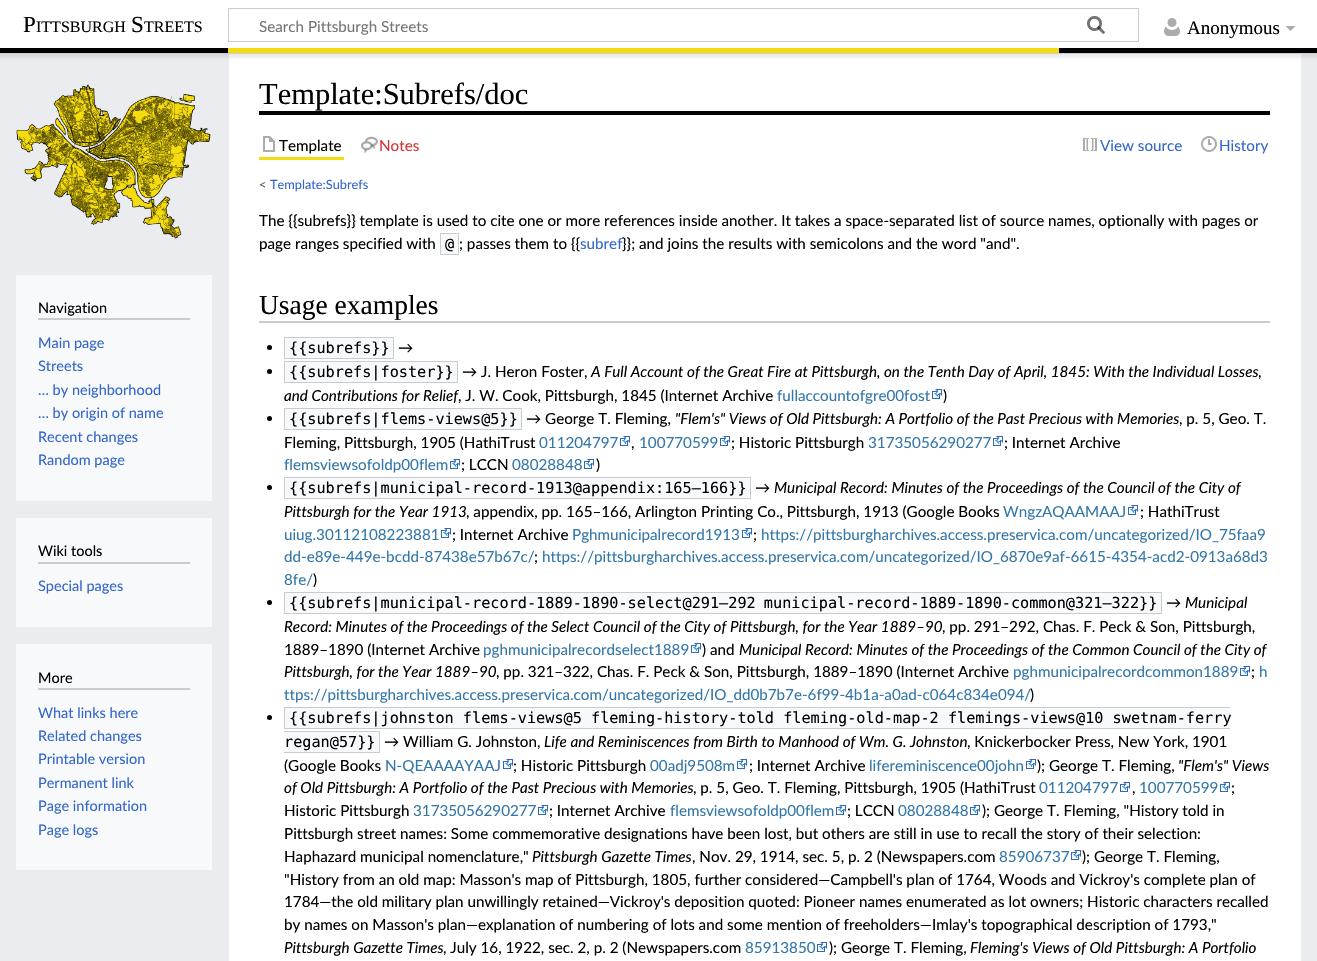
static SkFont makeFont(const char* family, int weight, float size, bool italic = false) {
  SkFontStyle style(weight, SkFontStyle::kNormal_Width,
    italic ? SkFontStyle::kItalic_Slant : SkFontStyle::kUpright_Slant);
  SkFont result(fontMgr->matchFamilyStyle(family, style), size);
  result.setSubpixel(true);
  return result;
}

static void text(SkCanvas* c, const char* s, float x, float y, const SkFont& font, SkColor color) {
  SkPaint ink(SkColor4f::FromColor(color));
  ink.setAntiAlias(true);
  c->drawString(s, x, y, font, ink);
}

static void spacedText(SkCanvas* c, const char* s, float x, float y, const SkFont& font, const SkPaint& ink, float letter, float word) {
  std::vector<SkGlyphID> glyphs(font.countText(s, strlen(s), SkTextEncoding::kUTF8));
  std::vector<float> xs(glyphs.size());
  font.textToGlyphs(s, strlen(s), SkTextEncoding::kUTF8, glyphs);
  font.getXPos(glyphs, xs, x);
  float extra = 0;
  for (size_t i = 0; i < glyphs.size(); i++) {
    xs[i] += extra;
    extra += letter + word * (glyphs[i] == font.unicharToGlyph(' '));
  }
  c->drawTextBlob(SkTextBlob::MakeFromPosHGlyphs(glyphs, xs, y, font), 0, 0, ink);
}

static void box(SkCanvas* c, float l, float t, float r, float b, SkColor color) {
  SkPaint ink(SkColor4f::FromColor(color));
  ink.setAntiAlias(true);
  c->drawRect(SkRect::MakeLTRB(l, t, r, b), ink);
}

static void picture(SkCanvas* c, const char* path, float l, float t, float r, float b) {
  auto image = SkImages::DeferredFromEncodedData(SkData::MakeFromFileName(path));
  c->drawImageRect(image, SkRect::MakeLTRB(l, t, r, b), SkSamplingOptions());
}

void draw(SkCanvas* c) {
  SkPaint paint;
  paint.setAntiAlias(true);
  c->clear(0xffeaecf0);
  box(c, 229, 54, 1301, 961, 0xffffffff);
  paint.setColor(0x33000000);
  paint.setMaskFilter(SkMaskFilter::MakeBlur(kNormal_SkBlurStyle, 1));
  c->drawRect(SkRect::MakeLTRB(0, 48, 1317, 53), paint);
  paint.setMaskFilter(nullptr);
  paint.setColor(0x12000000);
  paint.setMaskFilter(SkMaskFilter::MakeBlur(kNormal_SkBlurStyle, 1.5f));
  c->drawRect(SkRect::MakeLTRB(-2, 49, 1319, 58), paint);
  paint.setMaskFilter(nullptr);
  box(c, 0, 0, 1317, 48, 0xffffffff);
  SkFont face1 = makeFont("Liberation Serif", 400, 23);
  text(c, "P", 23, 32, face1, 0xff000000);
  SkFont face2 = makeFont("Liberation Serif", 400, 16);
  text(c, "ITTSBURGH", 36, 32, face2, 0xff000000);
  text(c, "S", 131, 32, face1, 0xff000000);
  text(c, "TREETS", 144, 32, face2, 0xff000000);
  paint.setStyle(SkPaint::kStroke_Style);
  paint.setStrokeWidth(1);
  paint.setColor(0xffc8ccd1);
  c->drawRect(SkRect::MakeLTRB(228.5f, 8.5f, 1138.5f, 41.5f), paint);
  picture(c, "img_01.png", 1087, 16, 1105, 34);
  SkFont face3 = makeFont("Lato", 400, 15.2f);
  text(c, "Search Pittsburgh Streets", 259, 32, face3, 0xff757575);
  picture(c, "img_02.png", 1087, 16, 1105, 34);
  picture(c, "img_03.png", 1164, 18, 1180, 36);
  SkFont face4 = makeFont("Liberation Serif", 400, 19);
  text(c, "Anonymous", 1187, 34, face4, 0xff000000);
  paint.setStyle(SkPaint::kFill_Style);
  paint.setColor(0xffababab);
  c->drawPath(SkPathBuilder().moveTo(1295.5f, 26).lineTo(1290.5f, 31).lineTo(1285.5f, 26).close().detach(), paint);
  box(c, 0, 48, 228, 53, 0xff000000);
  box(c, 228, 48, 1059, 53, 0xfff5dc0f);
  box(c, 1059, 48, 1317, 53, 0xff000000);
  picture(c, "img_04.png", 16, 84, 211, 239);
  box(c, 16, 275, 212, 501, 0xfff8f9fa);
  box(c, 38, 318, 190, 320, 0xffc8ccd1);
  SkFont face5 = makeFont("Lato", 400, 14.5f);
  text(c, "Navigation", 38, 313, face5, 0xff000000);
  text(c, "Main page", 38, 348, face5, 0xff3366cc);
  text(c, "Streets", 38, 371, face5, 0xff3366cc);
  text(c, "… by neighborhood", 38, 395, face5, 0xff3366cc);
  text(c, "… by origin of name", 38, 418, face5, 0xff3366cc);
  text(c, "Recent changes", 38, 442, face5, 0xff3366cc);
  text(c, "Random page", 38, 465, face5, 0xff3366cc);
  box(c, 16, 518, 212, 627, 0xfff8f9fa);
  box(c, 38, 562, 190, 564, 0xffc8ccd1);
  text(c, "Wiki tools", 38, 556, face5, 0xff000000);
  text(c, "Special pages", 38, 591, face5, 0xff3366cc);
  box(c, 259, 111, 1270, 115, 0xff000000);
  SkFont face6 = makeFont("Liberation Serif", 400, 30.5f);
  text(c, "Template:Subrefs/doc", 259, 104, face6, 0xff000000);
  box(c, 259, 157, 344, 160, 0xfff5dc0f);
  picture(c, "img_05.png", 263, 136, 275, 152);
  text(c, "Template", 279, 151, face3, 0xff000000);
  picture(c, "img_06.png", 361, 136, 378, 153);
  text(c, "Notes", 379, 151, face3, 0xffd73333);
  picture(c, "img_07.png", 1083, 138, 1097, 151);
  text(c, "View source", 1100, 151, face3, 0xff3366cc);
  picture(c, "img_08.png", 1201, 136, 1217, 152);
  text(c, "History", 1219, 151, face3, 0xff3366cc);
  SkFont face7 = makeFont("Lato", 400, 12.75f);
  text(c, "<", 259, 189, face7, 0xff54595d);
  text(c, "Template:Subrefs", 270, 189, face7, 0xff3366cc);
  text(c, "The {{subrefs}} template is used to cite one or more references inside another. It takes a space-separated list of source names, optionally with pages or", 259, 226, face3, 0xff000000);
  text(c, "page ranges specified with", 259, 249, face3, 0xff000000);
  paint.setColor(0xfff8f9fa);
  c->drawRect(SkRect::MakeLTRB(440.5f, 233.5f, 458.5f, 254.5f), paint);
  paint.setStyle(SkPaint::kStroke_Style);
  paint.setColor(0xffc8ccd1);
  c->drawRect(SkRect::MakeLTRB(440.5f, 233.5f, 458.5f, 254.5f), paint);
  SkFont face8 = makeFont("DejaVu Sans Mono", 400, 15.2f);
  text(c, "@", 445, 249, face8, 0xff000000);
  text(c, "; passes them to {{", 459, 249, face3, 0xff000000);
  text(c, "subref", 580, 249, face3, 0xff3366cc);
  text(c, "}}; and joins the results with semicolons and the word \"and\".", 622, 249, face3, 0xff000000);
  box(c, 259, 321, 1270, 323, 0xffc8ccd1);
  SkFont face9 = makeFont("Liberation Serif", 400, 27.5f);
  text(c, "Usage examples", 259, 314, face9, 0xff000000);
  paint.setStyle(SkPaint::kFill_Style);
  paint.setColor(0xff000000);
  c->drawCircle(269.5f, 347.5f, 2.5f, paint);
  paint.setColor(0xfff8f9fa);
  c->drawRect(SkRect::MakeLTRB(284.5f, 337.5f, 393.5f, 358.5f), paint);
  paint.setStyle(SkPaint::kStroke_Style);
  paint.setColor(0xffc8ccd1);
  c->drawRect(SkRect::MakeLTRB(284.5f, 337.5f, 393.5f, 358.5f), paint);
  text(c, "{{subrefs}}", 289, 353, face8, 0xff000000);
  text(c, "→", 398, 353, face3, 0xff000000);
  paint.setStyle(SkPaint::kFill_Style);
  paint.setColor(0xff000000);
  c->drawCircle(269.5f, 371.5f, 2.5f, paint);
  paint.setColor(0xfff8f9fa);
  c->drawRect(SkRect::MakeLTRB(284.5f, 361.5f, 457.5f, 382.5f), paint);
  paint.setStyle(SkPaint::kStroke_Style);
  paint.setColor(0xffc8ccd1);
  c->drawRect(SkRect::MakeLTRB(284.5f, 361.5f, 457.5f, 382.5f), paint);
  text(c, "{{subrefs|foster}}", 289, 377, face8, 0xff000000);
  text(c, "→ J. Heron Foster,", 462, 377, face3, 0xff000000);
  SkFont face10 = makeFont("Lato", 400, 15.2f, true);
  text(c, "A Full Account of the Great Fire at Pittsburgh, on the Tenth Day of April, 1845: With the Individual Losses,", 591, 377, face10, 0xff000000);
  text(c, "and Contributions for Relief", 284, 401, face10, 0xff000000);
  text(c, ", J. W. Cook, Pittsburgh, 1845 (Internet Archive", 458, 401, face3, 0xff000000);
  text(c, "fullaccountofgre00fost", 777, 401, face3, 0xff3377aa);
  picture(c, "img_09.png", 932, 389, 942, 399);
  text(c, ")", 943, 401, face3, 0xff000000);
  paint.setStyle(SkPaint::kFill_Style);
  paint.setColor(0xff000000);
  c->drawCircle(269.5f, 418.5f, 2.5f, paint);
  paint.setColor(0xfff8f9fa);
  c->drawRect(SkRect::MakeLTRB(284.5f, 408.5f, 521.5f, 429.5f), paint);
  paint.setStyle(SkPaint::kStroke_Style);
  paint.setColor(0xffc8ccd1);
  c->drawRect(SkRect::MakeLTRB(284.5f, 408.5f, 521.5f, 429.5f), paint);
  text(c, "{{subrefs|flems-views@5}}", 289, 424, face8, 0xff000000);
  text(c, "→ George T. Fleming,", 526, 424, face3, 0xff000000);
  text(c, "\"Flem's\" Views of Old Pittsburgh: A Portfolio of the Past Precious with Memories", 675, 424, face10, 0xff000000);
  text(c, ", p. 5, Geo. T.", 1179, 424, face3, 0xff000000);
  text(c, "Fleming, Pittsburgh, 1905 (HathiTrust", 284, 448, face3, 0xff000000);
  text(c, "011204797", 539, 448, face3, 0xff3377aa);
  picture(c, "img_09.png", 620, 436, 630, 446);
  text(c, ",", 631, 448, face3, 0xff000000);
  text(c, "100770599", 639, 448, face3, 0xff3377aa);
  picture(c, "img_09.png", 720, 436, 730, 446);
  text(c, "; Historic Pittsburgh", 731, 448, face3, 0xff000000);
  text(c, "31735056290277", 868, 448, face3, 0xff3377aa);
  picture(c, "img_09.png", 993, 436, 1003, 446);
  text(c, "; Internet Archive", 1004, 448, face3, 0xff000000);
  text(c, "flemsviewsofoldp00flem", 284, 470, face3, 0xff3377aa);
  picture(c, "img_09.png", 450, 459, 460, 469);
  text(c, "; LCCN", 461, 470, face3, 0xff000000);
  text(c, "08028848", 512, 470, face3, 0xff3377aa);
  picture(c, "img_09.png", 584, 459, 594, 469);
  text(c, ")", 596, 470, face3, 0xff000000);
  paint.setStyle(SkPaint::kFill_Style);
  paint.setColor(0xff000000);
  c->drawCircle(269.5f, 487.5f, 2.5f, paint);
  paint.setColor(0xfff8f9fa);
  c->drawRect(SkRect::MakeLTRB(284.5f, 477.5f, 750.5f, 498.5f), paint);
  paint.setStyle(SkPaint::kStroke_Style);
  paint.setColor(0xffc8ccd1);
  c->drawRect(SkRect::MakeLTRB(284.5f, 477.5f, 750.5f, 498.5f), paint);
  text(c, "{{subrefs|municipal-record-1913@appendix:165–166}}", 289, 493, face8, 0xff000000);
  text(c, "→", 755, 493, face3, 0xff000000);
  text(c, "Municipal Record: Minutes of the Proceedings of the Council of the City of", 774, 493, face10, 0xff000000);
  text(c, "Pittsburgh for the Year 1913", 284, 517, face10, 0xff000000);
  text(c, ", appendix, pp. 165–166, Arlington Printing Co., Pittsburgh, 1913 (Google Books", 466, 517, face3, 0xff000000);
  text(c, "WngzAQAAMAAJ", 1003, 517, face3, 0xff3377aa);
  picture(c, "img_09.png", 1128, 505, 1138, 515);
  text(c, "; HathiTrust", 1140, 517, face3, 0xff000000);
  text(c, "uiug.30112108223881", 284, 540, face3, 0xff3377aa);
  picture(c, "img_09.png", 441, 528, 451, 538);
  text(c, "; Internet Archive", 452, 540, face3, 0xff000000);
  text(c, "Pghmunicipalrecord1913", 572, 540, face3, 0xff3377aa);
  picture(c, "img_09.png", 742, 528, 752, 538);
  text(c, ";", 753, 540, face3, 0xff000000);
  text(c, "https://pittsburgharchives.access.preservica.com/uncategorized/IO_75faa9", 761, 540, face3, 0xff3377aa);
  text(c, "dd-e89e-449e-bcdd-87438e57b67c/", 284, 562, face3, 0xff3377aa);
  text(c, ";", 534, 562, face3, 0xff000000);
  text(c, "https://pittsburgharchives.access.preservica.com/uncategorized/IO_6870e9af-6615-4354-acd2-0913a68d3", 542, 562, face3, 0xff3377aa);
  text(c, "8fe/", 284, 585, face3, 0xff3377aa);
  text(c, ")", 313, 585, face3, 0xff000000);
  paint.setStyle(SkPaint::kFill_Style);
  paint.setColor(0xff000000);
  c->drawCircle(269.5f, 602.5f, 2.5f, paint);
  paint.setColor(0xfff8f9fa);
  c->drawRect(SkRect::MakeLTRB(284.5f, 592.5f, 1161.5f, 613.5f), paint);
  paint.setStyle(SkPaint::kStroke_Style);
  paint.setColor(0xffc8ccd1);
  c->drawRect(SkRect::MakeLTRB(284.5f, 592.5f, 1161.5f, 613.5f), paint);
  paint.setStyle(SkPaint::kFill_Style);
  paint.setColor(0xff000000);
  spacedText(c, "{{subrefs|municipal-record-1889-1890-select@291–292 municipal-record-1889-1890-common@321–322}}", 289, 608, face8, paint, 0, -1);
  text(c, "→", 1166, 608, face3, 0xff000000);
  text(c, "Municipal", 1185, 608, face10, 0xff000000);
  text(c, "Record: Minutes of the Proceedings of the Select Council of the City of Pittsburgh, for the Year 1889–90", 284, 632, face10, 0xff000000);
  text(c, ", pp. 291–292, Chas. F. Peck & Son, Pittsburgh,", 942, 632, face3, 0xff000000);
  text(c, "1889–1890 (Internet Archive", 284, 655, face3, 0xff000000);
  text(c, "pghmunicipalrecordselect1889", 483, 655, face3, 0xff3377aa);
  picture(c, "img_09.png", 691, 643, 701, 653);
  text(c, ") and", 702, 655, face3, 0xff000000);
  text(c, "Municipal Record: Minutes of the Proceedings of the Common Council of the City of", 739, 655, face10, 0xff000000);
  text(c, "Pittsburgh, for the Year 1889–90", 284, 677, face10, 0xff000000);
  text(c, ", pp. 321–322, Chas. F. Peck & Son, Pittsburgh, 1889–1890 (Internet Archive", 496, 677, face3, 0xff000000);
  text(c, "pghmunicipalrecordcommon1889", 1013, 677, face3, 0xff3377aa);
  picture(c, "img_09.png", 1240, 666, 1250, 676);
  text(c, ";", 1251, 677, face3, 0xff000000);
  text(c, "h", 1259, 677, face3, 0xff3377aa);
  text(c, "ttps://pittsburgharchives.access.preservica.com/uncategorized/IO_dd0b7b7e-6f99-4b1a-a0ad-c064c834e094/", 284, 700, face3, 0xff3377aa);
  text(c, ")", 1030, 700, face3, 0xff000000);
  c->drawCircle(269.5f, 717.5f, 2.5f, paint);
  box(c, 285, 708, 1230, 728, 0xfff8f9fa);
  text(c, "{{subrefs|johnston flems-views@5 fleming-history-told fleming-old-map-2 flemings-views@10 swetnam-ferry", 289, 723, face8, 0xff000000);
  box(c, 284, 707, 1230, 708, 0xffc8ccd1);
  box(c, 284, 728, 1230, 729, 0xffc8ccd1);
  box(c, 284, 707, 285, 729, 0xffc8ccd1);
  box(c, 284, 732, 379, 752, 0xfff8f9fa);
  text(c, "regan@57}}", 284, 747, face8, 0xff000000);
  box(c, 284, 731, 380, 732, 0xffc8ccd1);
  box(c, 379, 731, 380, 753, 0xffc8ccd1);
  box(c, 284, 752, 380, 753, 0xffc8ccd1);
  text(c, "→ William G. Johnston,", 384, 747, face3, 0xff000000);
  text(c, "Life and Reminiscences from Birth to Manhood of Wm. G. Johnston", 544, 747, face10, 0xff000000);
  text(c, ", Knickerbocker Press, New York, 1901", 967, 747, face3, 0xff000000);
  text(c, "(Google Books", 284, 771, face3, 0xff000000);
  text(c, "N-QEAAAAYAAJ", 385, 771, face3, 0xff3377aa);
  picture(c, "img_09.png", 503, 759, 513, 769);
  text(c, "; Historic Pittsburgh", 513, 771, face3, 0xff000000);
  text(c, "00adj9508m", 650, 771, face3, 0xff3377aa);
  picture(c, "img_09.png", 737, 759, 747, 769);
  text(c, "; Internet Archive", 749, 771, face3, 0xff000000);
  text(c, "lifereminiscence00john", 869, 771, face3, 0xff3377aa);
  picture(c, "img_09.png", 1026, 759, 1036, 769);
  text(c, "); George T. Fleming,", 1037, 771, face3, 0xff000000);
  text(c, "\"Flem's\" Views", 1178, 771, face10, 0xff000000);
  text(c, "of Old Pittsburgh: A Portfolio of the Past Precious with Memories", 284, 793, face10, 0xff000000);
  text(c, ", p. 5, Geo. T. Fleming, Pittsburgh, 1905 (HathiTrust", 693, 793, face3, 0xff000000);
  text(c, "011204797", 1039, 793, face3, 0xff3377aa);
  picture(c, "img_09.png", 1120, 782, 1130, 792);
  text(c, ",", 1132, 793, face3, 0xff000000);
  text(c, "100770599", 1139, 793, face3, 0xff3377aa);
  picture(c, "img_09.png", 1220, 782, 1230, 792);
  text(c, ";", 1231, 793, face3, 0xff000000);
  text(c, "Historic Pittsburgh", 284, 816, face3, 0xff000000);
  text(c, "31735056290277", 413, 816, face3, 0xff3377aa);
  picture(c, "img_09.png", 538, 805, 548, 815);
  text(c, "; Internet Archive", 549, 816, face3, 0xff000000);
  text(c, "flemsviewsofoldp00flem", 670, 816, face3, 0xff3377aa);
  picture(c, "img_09.png", 836, 805, 846, 815);
  text(c, "; LCCN", 847, 816, face3, 0xff000000);
  text(c, "08028848", 898, 816, face3, 0xff3377aa);
  picture(c, "img_09.png", 970, 805, 980, 815);
  text(c, "); George T. Fleming, \"History told in", 982, 816, face3, 0xff000000);
  text(c, "Pittsburgh street names: Some commemorative designations have been lost, but others are still in use to recall the story of their selection:", 284, 839, face3, 0xff000000);
  text(c, "Haphazard municipal nomenclature,\"", 284, 862, face3, 0xff000000);
  text(c, "Pittsburgh Gazette Times", 532, 862, face10, 0xff000000);
  text(c, ", Nov. 29, 1914, sec. 5, p. 2 (Newspapers.com", 692, 862, face3, 0xff000000);
  text(c, "85906737", 999, 862, face3, 0xff3377aa);
  picture(c, "img_09.png", 1071, 850, 1081, 860);
  text(c, "); George T. Fleming,", 1082, 862, face3, 0xff000000);
  text(c, "\"History from an old map: Masson's map of Pittsburgh, 1805, further considered—Campbell's plan of 1764, Woods and Vickroy's complete plan of", 284, 885, face3, 0xff000000);
  text(c, "1784—the old military plan unwillingly retained—Vickroy's deposition quoted: Pioneer names enumerated as lot owners; Historic characters recalled", 284, 907, face3, 0xff000000);
  text(c, "by names on Masson's plan—explanation of numbering of lots and some mention of freeholders—Imlay's topographical description of 1793,\"", 284, 930, face3, 0xff000000);
  text(c, "Pittsburgh Gazette Times", 284, 953, face10, 0xff000000);
  text(c, ", July 16, 1922, sec. 2, p. 2 (Newspapers.com", 443, 953, face3, 0xff000000);
  text(c, "85913850", 745, 953, face3, 0xff3377aa);
  picture(c, "img_09.png", 817, 942, 827, 952);
  text(c, "); George T. Fleming,", 829, 953, face3, 0xff000000);
  text(c, "Fleming's Views of Old Pittsburgh: A Portfolio", 970, 953, face10, 0xff000000);
  box(c, 16, 644, 212, 870, 0xfff8f9fa);
  box(c, 38, 688, 190, 690, 0xffc8ccd1);
  text(c, "More", 38, 683, face5, 0xff000000);
  text(c, "What links here", 38, 718, face5, 0xff3366cc);
  text(c, "Related changes", 38, 741, face5, 0xff3366cc);
  text(c, "Printable version", 38, 764, face5, 0xff3366cc);
  text(c, "Permanent link", 38, 788, face5, 0xff3366cc);
  text(c, "Page information", 38, 811, face5, 0xff3366cc);
  text(c, "Page logs", 38, 835, face5, 0xff3366cc);
}
